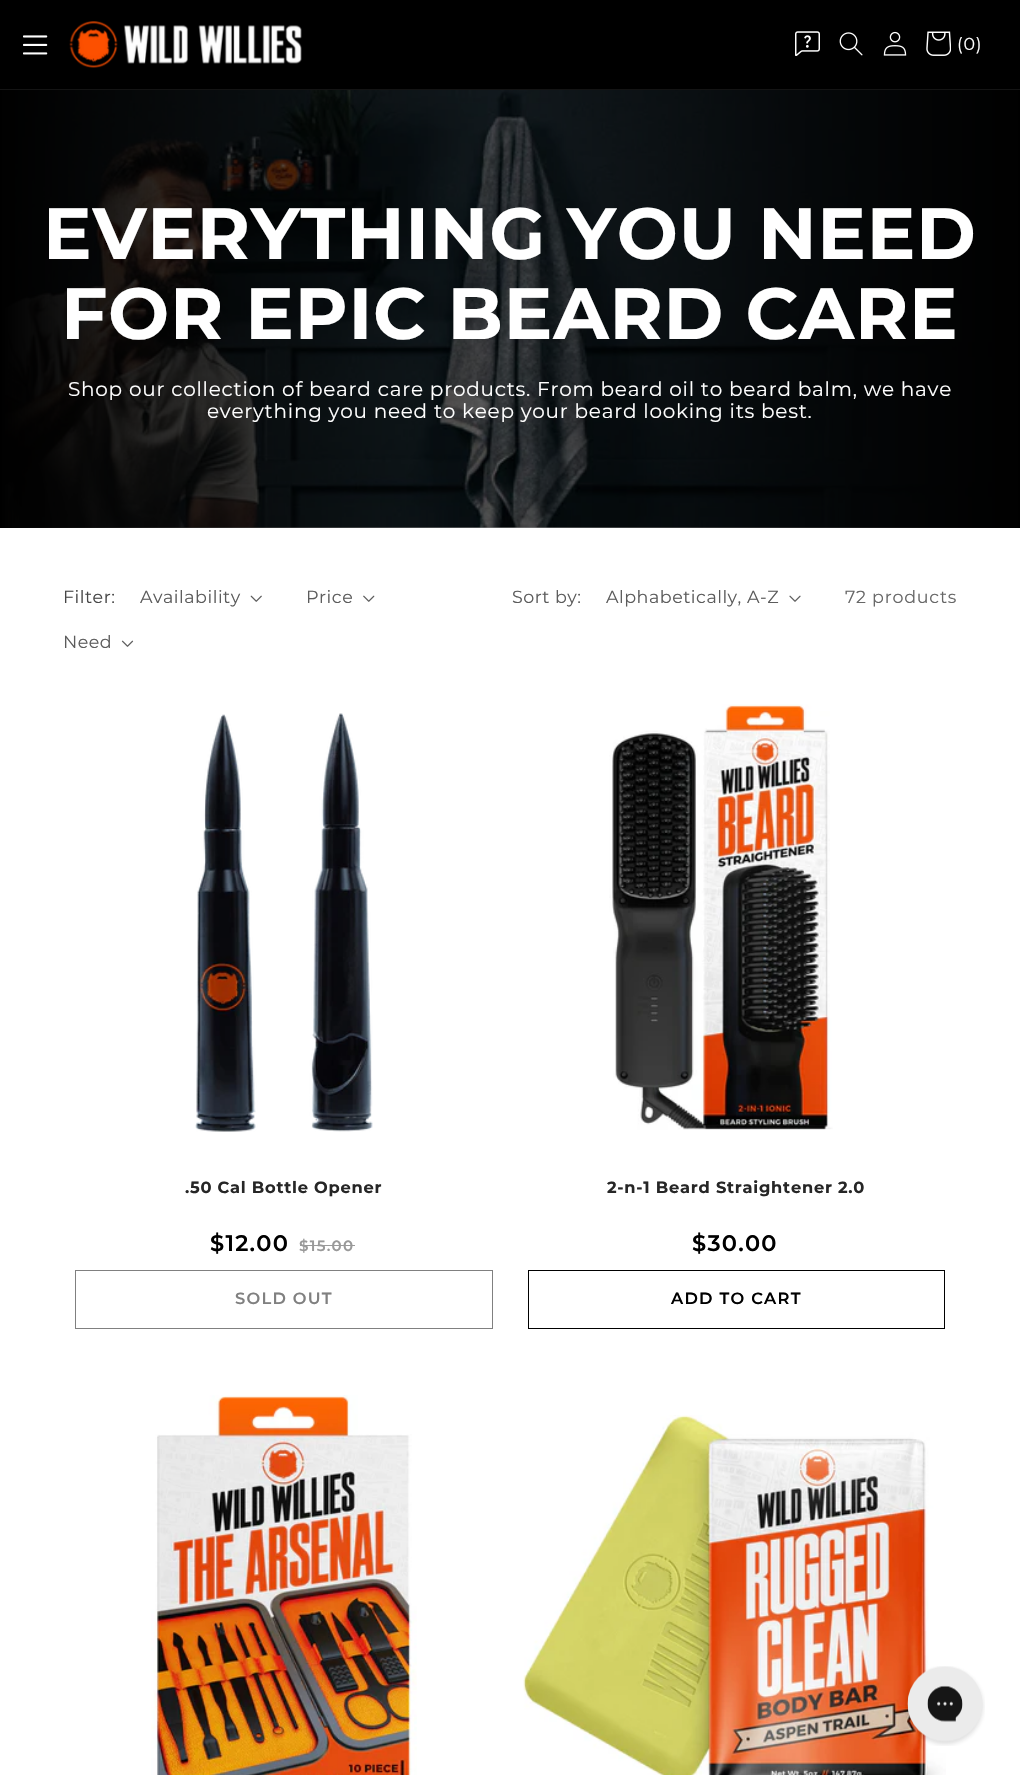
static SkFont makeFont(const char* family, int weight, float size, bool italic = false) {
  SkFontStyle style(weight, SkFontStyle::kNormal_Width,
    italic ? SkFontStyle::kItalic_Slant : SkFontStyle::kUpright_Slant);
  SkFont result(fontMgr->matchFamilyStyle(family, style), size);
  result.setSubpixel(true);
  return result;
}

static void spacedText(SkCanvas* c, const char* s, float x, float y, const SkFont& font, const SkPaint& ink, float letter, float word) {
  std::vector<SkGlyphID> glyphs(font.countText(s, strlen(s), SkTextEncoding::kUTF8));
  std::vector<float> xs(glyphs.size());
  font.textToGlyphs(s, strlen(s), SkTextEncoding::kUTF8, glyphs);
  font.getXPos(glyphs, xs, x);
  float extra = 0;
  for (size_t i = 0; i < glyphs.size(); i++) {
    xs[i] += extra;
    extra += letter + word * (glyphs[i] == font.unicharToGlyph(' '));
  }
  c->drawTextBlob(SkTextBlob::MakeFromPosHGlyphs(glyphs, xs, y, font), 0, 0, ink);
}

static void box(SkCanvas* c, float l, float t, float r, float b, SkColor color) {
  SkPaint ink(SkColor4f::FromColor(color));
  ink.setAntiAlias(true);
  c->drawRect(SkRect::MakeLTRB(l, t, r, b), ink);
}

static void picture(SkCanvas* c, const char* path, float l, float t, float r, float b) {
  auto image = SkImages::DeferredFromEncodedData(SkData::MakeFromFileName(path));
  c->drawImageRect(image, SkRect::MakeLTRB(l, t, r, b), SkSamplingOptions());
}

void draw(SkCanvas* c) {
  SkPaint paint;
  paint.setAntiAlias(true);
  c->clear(0xffffffff);
  box(c, 0, 0, 1020, 89, 0xff000000);
  box(c, 0, 89, 1020, 90, 0xff141414);
  picture(c, "img_01.png", 23, 35, 48, 55);
  picture(c, "img_02.png", 69, 21, 302, 68);
  picture(c, "img_03.png", 795, 31, 820, 56);
  picture(c, "img_04.png", 839, 32, 863, 56);
  picture(c, "img_05.png", 883, 31, 907, 56);
  picture(c, "img_06.png", 926, 31, 951, 56);
  SkFont face1 = makeFont("Montserrat", 400, 17.5f);
  paint.setColor(0xffffffff);
  spacedText(c, "(0)", 957, 50, face1, paint, 0.75f, 0);
  picture(c, "img_07.png", 5, 90, 1015, 528);
  {
    const SkColor colors[] = {0xff000000, 0x66000000, 0xff000000};
    const float stops[] = {0, 0.5f, 1};
    const SkPoint ends[] = {{0, 309}, {1020, 309}};
    paint.setShader(SkGradientShader::MakeLinear(ends, colors, stops, 3, SkTileMode::kClamp));
    paint.setAlpha(255);
  }
  c->drawRect(SkRect::MakeLTRB(0, 90, 1020, 528), paint);
  SkFont face2 = makeFont("Montserrat", 700, 72.5f);
  paint.setShader(nullptr);
  paint.setColor(0xffffffff);
  spacedText(c, "EVERYTHING YOU NEED", 43, 259, face2, paint, 0.75f, 0);
  spacedText(c, "FOR EPIC BEARD CARE", 61, 339, face2, paint, 0.75f, 0);
  SkFont face3 = makeFont("Montserrat", 400, 20);
  spacedText(c, "Shop our collection of beard care products. From beard oil to beard balm, we have", 68, 396, face3, paint, 0.75f, 0);
  spacedText(c, "everything you need to keep your beard looking its best.", 207, 418, face3, paint, 0.75f, 0);
  paint.setColor(0xff474747);
  spacedText(c, "Filter:", 63, 603, face1, paint, 0.5f, 0);
  paint.setColor(0xff5c5c5c);
  spacedText(c, "Availability", 140, 603, face1, paint, 0.5f, 0);
  picture(c, "img_08.png", 250, 595, 262, 602);
  spacedText(c, "Price", 306, 603, face1, paint, 0.5f, 0);
  picture(c, "img_09.png", 363, 595, 375, 602);
  spacedText(c, "Need", 63, 648, face1, paint, 0.5f, 0);
  picture(c, "img_10.png", 121, 640, 134, 647);
  spacedText(c, "Sort by:", 512, 603, face1, paint, 0.5f, 0);
  spacedText(c, "Alphabetically, A-Z", 606, 603, face1, paint, 0.5f, 0);
  picture(c, "img_11.png", 789, 595, 801, 602);
  paint.setColor(0xff676767);
  spacedText(c, "72 products", 845, 603, face1, paint, 0.75f, 0);
  picture(c, "img_12.png", 195, 713, 373, 1132);
  SkFont face4 = makeFont("Montserrat", 700, 16.25f);
  paint.setColor(0xff262626);
  spacedText(c, ".50 Cal Bottle Opener", 185, 1193, face4, paint, 0.75f, 0);
  SkFont face5 = makeFont("Montserrat", 600, 22.5f);
  paint.setColor(0xff000000);
  spacedText(c, "$12.00", 210, 1251, face5, paint, 1.25f, 0);
  SkFont face6 = makeFont("Montserrat", 600, 15);
  paint.setColor(0xff999999);
  spacedText(c, "$15.00", 299, 1251, face6, paint, 1.25f, 0);
  box(c, 300, 1245, 355, 1246, 0xff999999);
  paint.setStyle(SkPaint::kStroke_Style);
  paint.setStrokeWidth(1);
  paint.setColor(0xff808080);
  c->drawRect(SkRect::MakeLTRB(75.5f, 1270.5f, 492.5f, 1328.5f), paint);
  SkFont face7 = makeFont("Montserrat", 600, 16.25f);
  paint.setStyle(SkPaint::kFill_Style);
  spacedText(c, "SOLD OUT", 235, 1304, face7, paint, 1.25f, 0);
  picture(c, "img_13.png", 609, 704, 833, 1130);
  paint.setColor(0xff262626);
  spacedText(c, "2-n-1 Beard Straightener 2.0", 607, 1193, face4, paint, 0.75f, 0);
  paint.setColor(0xff000000);
  spacedText(c, "$30.00", 692, 1251, face5, paint, 1.25f, 0);
  paint.setStyle(SkPaint::kStroke_Style);
  c->drawRect(SkRect::MakeLTRB(528.5f, 1270.5f, 944.5f, 1328.5f), paint);
  paint.setStyle(SkPaint::kFill_Style);
  spacedText(c, "ADD TO CART", 671, 1304, face7, paint, 1.25f, 0);
  picture(c, "img_14.png", 151, 1395, 417, 1775);
  picture(c, "img_15.png", 523, 1415, 946, 1775);
  picture(c, "img_16.png", 905, 1666, 985, 1746);
}
